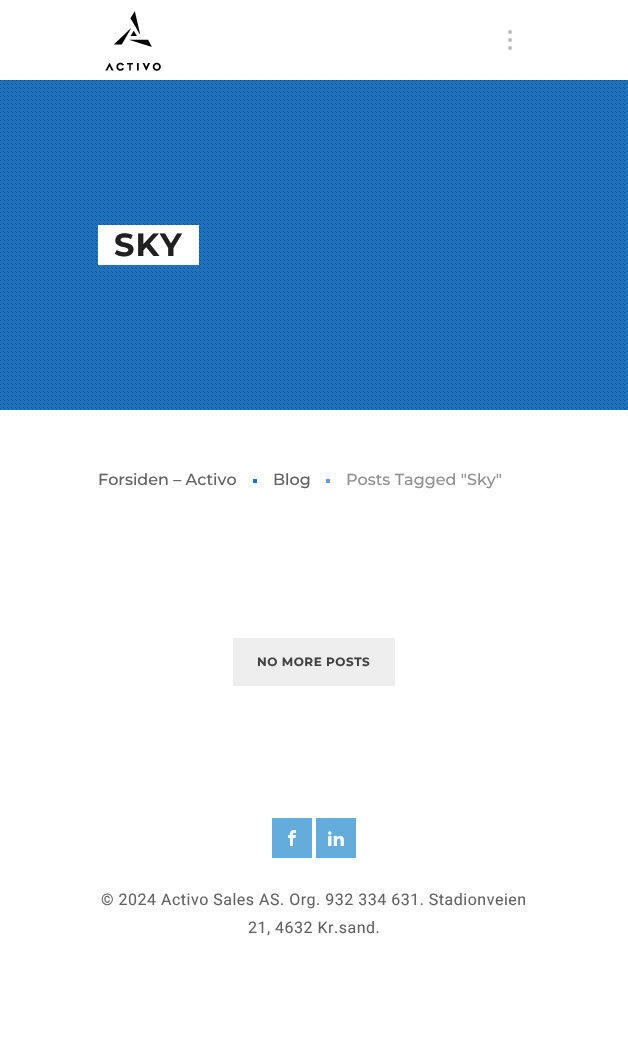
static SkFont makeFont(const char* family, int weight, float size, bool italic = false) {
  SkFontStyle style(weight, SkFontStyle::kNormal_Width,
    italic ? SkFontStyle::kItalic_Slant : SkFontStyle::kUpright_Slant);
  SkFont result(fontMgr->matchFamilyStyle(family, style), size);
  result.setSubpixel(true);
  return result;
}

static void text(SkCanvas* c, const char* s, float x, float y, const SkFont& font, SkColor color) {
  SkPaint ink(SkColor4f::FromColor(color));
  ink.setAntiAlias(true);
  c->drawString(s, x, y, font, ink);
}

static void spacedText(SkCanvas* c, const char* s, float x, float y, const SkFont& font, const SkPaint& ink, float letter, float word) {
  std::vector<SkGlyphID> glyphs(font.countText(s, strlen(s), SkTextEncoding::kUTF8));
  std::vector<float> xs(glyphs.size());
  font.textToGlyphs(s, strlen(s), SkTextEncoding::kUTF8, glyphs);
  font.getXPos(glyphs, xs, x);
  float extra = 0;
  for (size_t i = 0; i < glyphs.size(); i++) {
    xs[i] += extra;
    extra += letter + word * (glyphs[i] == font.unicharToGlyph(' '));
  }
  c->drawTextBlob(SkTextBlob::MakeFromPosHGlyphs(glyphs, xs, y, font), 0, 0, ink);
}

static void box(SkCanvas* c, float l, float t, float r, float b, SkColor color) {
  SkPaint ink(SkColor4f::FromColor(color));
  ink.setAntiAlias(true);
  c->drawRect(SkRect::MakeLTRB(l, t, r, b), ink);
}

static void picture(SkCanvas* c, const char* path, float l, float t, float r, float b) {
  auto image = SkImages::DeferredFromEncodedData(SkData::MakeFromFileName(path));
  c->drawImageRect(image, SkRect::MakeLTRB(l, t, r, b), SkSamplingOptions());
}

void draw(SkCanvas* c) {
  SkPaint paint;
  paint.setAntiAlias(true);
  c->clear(0xffffffff);
  box(c, 0, 80, 628, 410, 0xff1e73be);
  picture(c, "img_02.png", 0, 80, 628, 409);
  c->save();
  c->clipRect(SkRect::MakeLTRB(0, 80, 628, 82));
  paint.setColor(0x1a000000);
  paint.setMaskFilter(SkMaskFilter::MakeBlur(kNormal_SkBlurStyle, 1.5f));
  c->drawRect(SkRect::MakeLTRB(0, 1, 628, 81), paint);
  paint.setMaskFilter(nullptr);
  c->restore();
  picture(c, "img_01.png", 105, 11, 161, 71);
  paint.setColor(0xffbdbdbd);
  c->drawCircle(510, 40, 2, paint);
  c->drawCircle(510, 32, 2, paint);
  c->drawCircle(510, 48, 2, paint);
  box(c, 98, 225, 199, 265, 0xffffffff);
  SkFont face1 = makeFont("Montserrat", 700, 32);
  paint.setColor(0xff212121);
  spacedText(c, "SKY", 114, 256, face1, paint, 1, 0);
  SkFont face2 = makeFont("Montserrat", 500, 16);
  text(c, "Forsiden – Activo", 98, 485, face2, 0xff616161);
  box(c, 253, 479, 257, 483, 0xff1e73be);
  text(c, "Blog", 273, 485, face2, 0xff616161);
  box(c, 326, 479, 330, 483, 0xff629dd2);
  text(c, "Posts Tagged \"Sky\"", 346, 485, face2, 0xff909090);
  box(c, 233, 638, 395, 686, 0xffeeeeee);
  SkFont face3 = makeFont("Montserrat", 700, 12);
  paint.setColor(0xff424242);
  spacedText(c, "NO MORE POSTS", 257, 666, face3, paint, 0.5f, 0);
  box(c, 272, 818, 312, 858, 0xff63addd);
  picture(c, "img_03.png", 288, 830, 296, 846);
  box(c, 316, 818, 356, 858, 0xff63addd);
  picture(c, "img_04.png", 328, 831, 344, 846);
  SkFont face4 = makeFont("Roboto", 400, 16);
  paint.setColor(0xff616161);
  spacedText(c, "© 2024 Activo Sales AS. Org. 932 334 631. Stadionveien", 101, 905, face4, paint, 0.5f, 0);
  spacedText(c, "21, 4632 Kr.sand.", 248, 933, face4, paint, 0.5f, 0);
}
